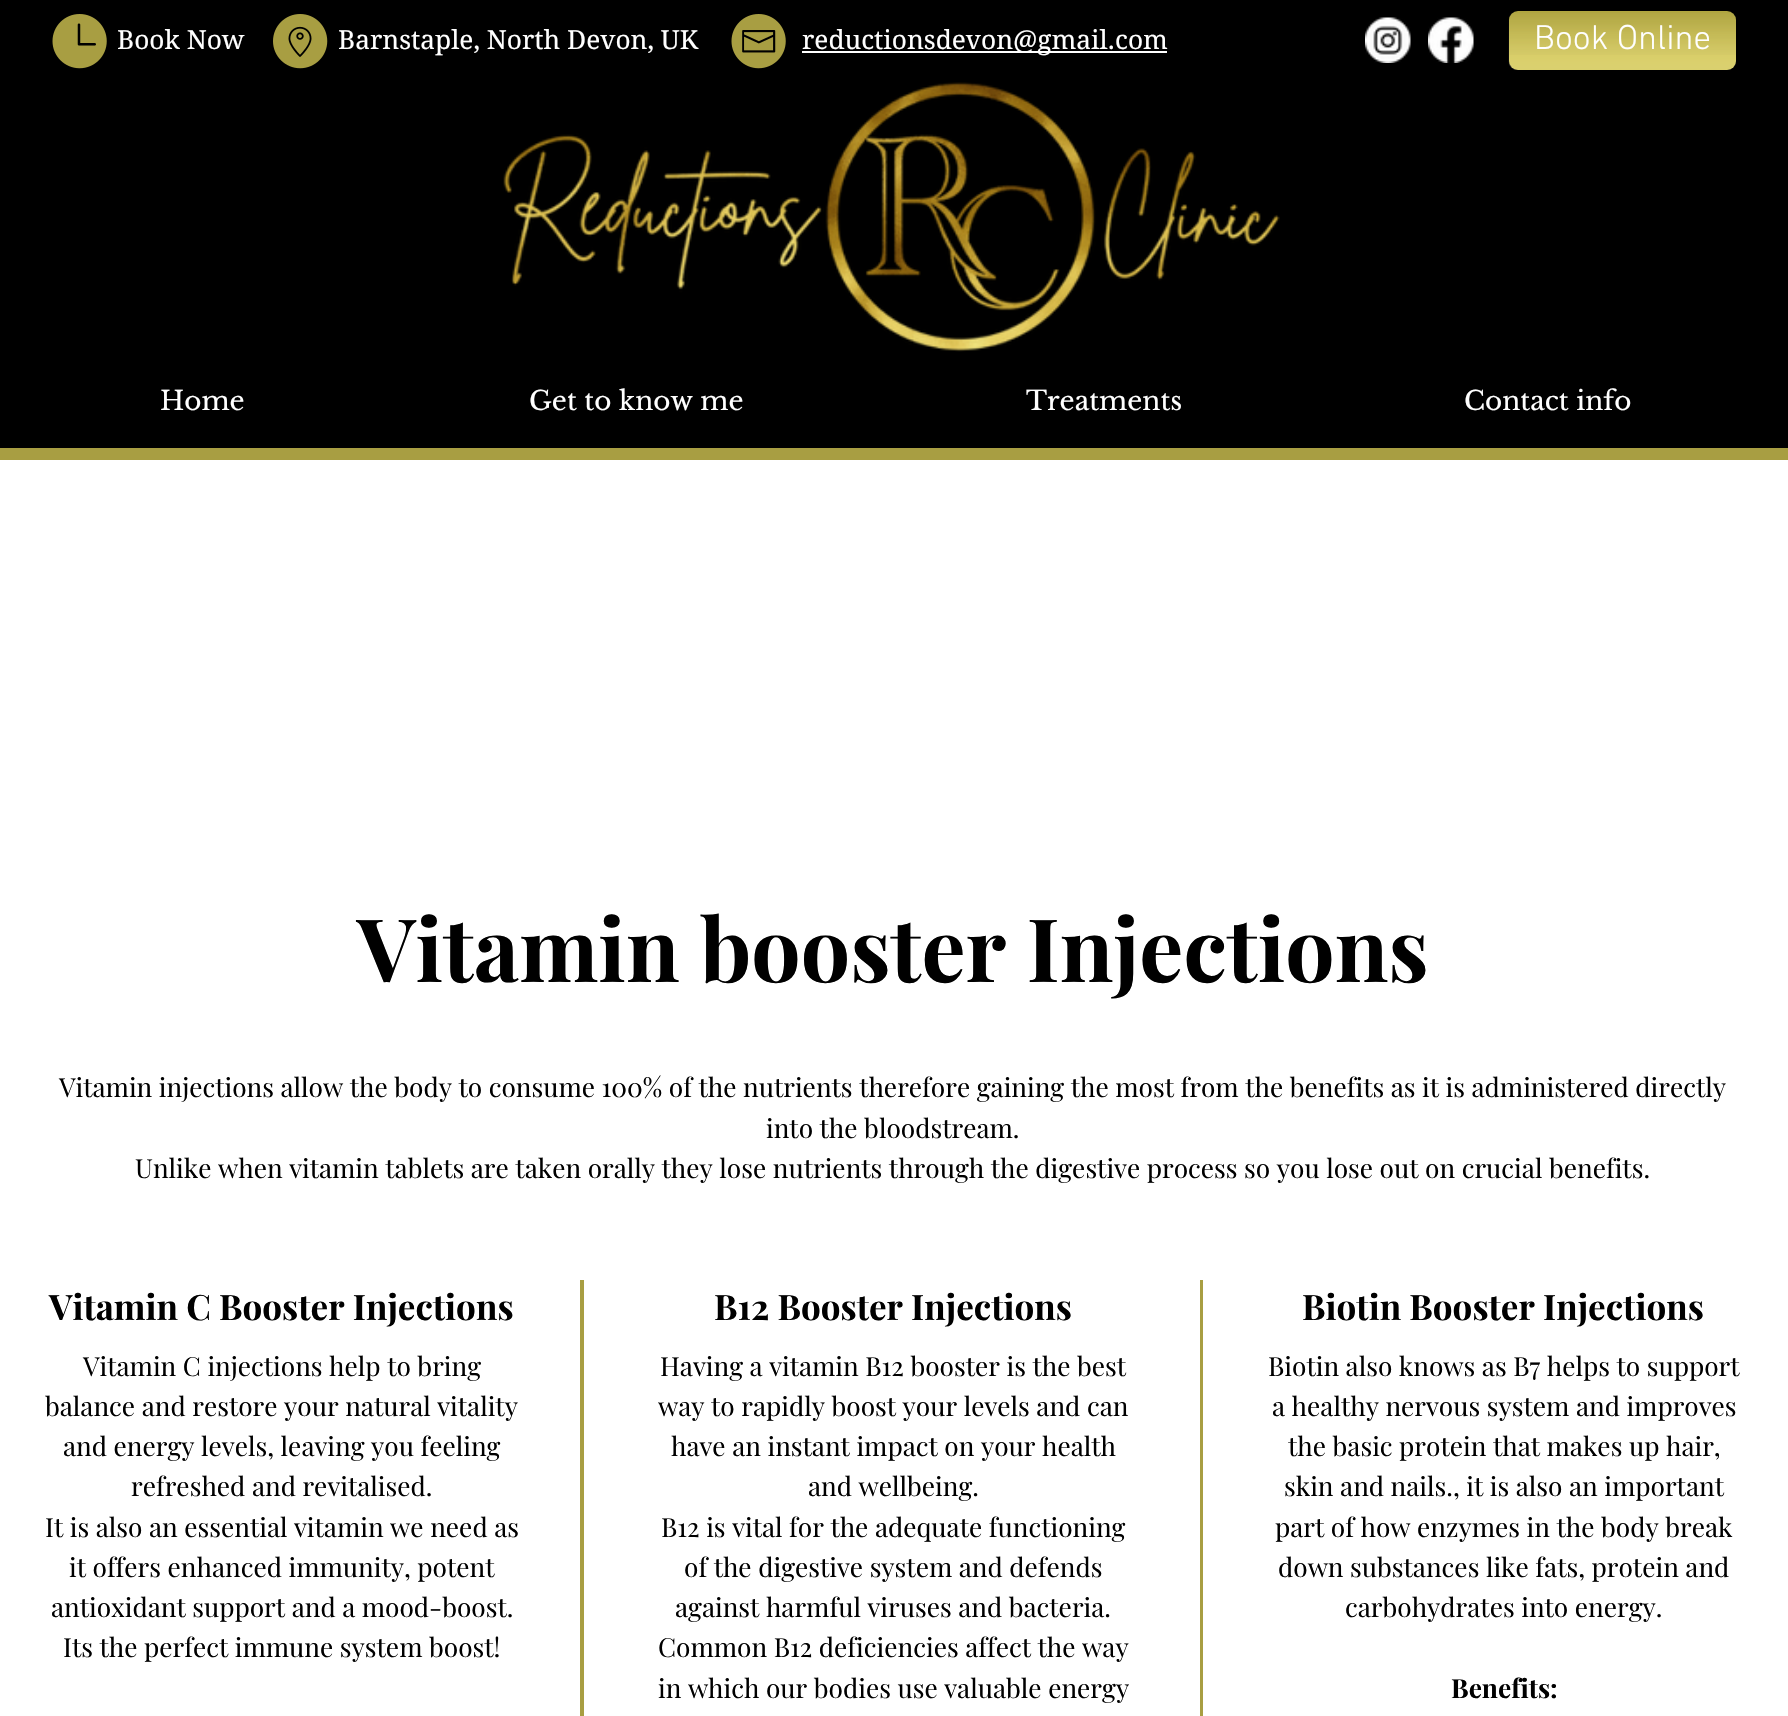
static SkFont makeFont(const char* family, int weight, float size, bool italic = false) {
  SkFontStyle style(weight, SkFontStyle::kNormal_Width,
    italic ? SkFontStyle::kItalic_Slant : SkFontStyle::kUpright_Slant);
  SkFont result(fontMgr->matchFamilyStyle(family, style), size);
  result.setSubpixel(true);
  return result;
}

static void text(SkCanvas* c, const char* s, float x, float y, const SkFont& font, SkColor color) {
  SkPaint ink(SkColor4f::FromColor(color));
  ink.setAntiAlias(true);
  c->drawString(s, x, y, font, ink);
}

static void box(SkCanvas* c, float l, float t, float r, float b, SkColor color) {
  SkPaint ink(SkColor4f::FromColor(color));
  ink.setAntiAlias(true);
  c->drawRect(SkRect::MakeLTRB(l, t, r, b), ink);
}

static void roundBox(SkCanvas* c, float l, float t, float r, float b, float radius, SkColor color) {
  SkPaint ink(SkColor4f::FromColor(color));
  ink.setAntiAlias(true);
  c->drawRoundRect(SkRect::MakeLTRB(l, t, r, b), radius, radius, ink);
}

static void picture(SkCanvas* c, const char* path, float l, float t, float r, float b) {
  auto image = SkImages::DeferredFromEncodedData(SkData::MakeFromFileName(path));
  c->drawImageRect(image, SkRect::MakeLTRB(l, t, r, b), SkSamplingOptions());
}

void draw(SkCanvas* c) {
  SkPaint paint;
  paint.setAntiAlias(true);
  c->clear(0xffffffff);
  box(c, 0, 0, 1788, 448, 0xff000000);
  box(c, 0, 448, 1788, 460, 0xffa89e42);
  picture(c, "img_01.png", 52, 14, 107, 69);
  SkFont face1 = makeFont("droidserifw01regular", 400, 26.25f);
  text(c, "Book Now", 117, 49, face1, 0xffffffff);
  picture(c, "img_02.png", 273, 14, 328, 69);
  text(c, "Barnstaple, North Devon, UK", 338, 49, face1, 0xffffffff);
  picture(c, "img_03.png", 731, 14, 786, 69);
  box(c, 802, 51, 1167, 53, 0xffffffff);
  text(c, "reductionsdevon@gmail.com", 802, 49, face1, 0xffffffff);
  picture(c, "img_04.png", 1365, 17, 1411, 63);
  picture(c, "img_05.png", 1428, 17, 1474, 63);
  roundBox(c, 1509, 11, 1736, 70, 9, 0xffd2c54c);
  picture(c, "img_06.png", 1509, 11, 1736, 55);
  picture(c, "img_07.png", 1508, 13, 1736, 70);
  SkFont face2 = makeFont("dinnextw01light", 300, 35);
  text(c, "Book Online", 1534, 49, face2, 0xffffffff);
  picture(c, "img_08.png", 503, 82, 1280, 352);
  SkFont face3 = makeFont("Libre Baskerville", 400, 26.25f);
  text(c, "Home", 160, 410, face3, 0xffffffff);
  text(c, "Get to know me", 529, 410, face3, 0xffffffff);
  text(c, "Treatments", 1026, 410, face3, 0xffffffff);
  text(c, "Contact info", 1464, 410, face3, 0xffffffff);
  SkFont face4 = makeFont("Playfair Display", 700, 87.5f);
  text(c, "Vitamin booster Injections", 357, 982, face4, 0xff000000);
  SkFont face5 = makeFont("Playfair Display", 400, 26.25f);
  text(c, "Vitamin injections allow the body to consume 100% of the nutrients therefore gaining the most from the benefits as it is administered directly", 59, 1097, face5, 0xff000000);
  text(c, "into the bloodstream.", 766, 1138, face5, 0xff000000);
  text(c, "Unlike when vitamin tablets are taken orally they lose nutrients through the digestive process so you lose out on crucial benefits.", 135, 1178, face5, 0xff000000);
  SkFont face6 = makeFont("Playfair Display", 700, 35);
  text(c, "Vitamin C Booster Injections", 49, 1320, face6, 0xff000000);
  box(c, 580, 1280, 584, 1716, 0xffa89e42);
  text(c, "B12 Booster Injections", 714, 1320, face6, 0xff000000);
  box(c, 1200, 1280, 1203, 1716, 0xffa89e42);
  text(c, "Biotin Booster Injections", 1302, 1320, face6, 0xff000000);
  text(c, "Vitamin C injections help to bring", 83, 1376, face5, 0xff000000);
  text(c, "balance and restore your natural vitality", 45, 1416, face5, 0xff000000);
  text(c, "and energy levels, leaving you feeling", 63, 1456, face5, 0xff000000);
  text(c, "refreshed and revitalised.", 131, 1496, face5, 0xff000000);
  text(c, "It is also an essential vitamin we need as", 45, 1537, face5, 0xff000000);
  text(c, "it offers enhanced immunity, potent", 69, 1577, face5, 0xff000000);
  text(c, "antioxidant support and a mood-boost.", 51, 1617, face5, 0xff000000);
  text(c, "Its the perfect immune system boost!", 63, 1657, face5, 0xff000000);
  text(c, "Having a vitamin B12 booster is the best", 660, 1376, face5, 0xff000000);
  text(c, "way to rapidly boost your levels and can", 658, 1416, face5, 0xff000000);
  text(c, "have an instant impact on your health", 671, 1456, face5, 0xff000000);
  text(c, "and wellbeing.", 808, 1496, face5, 0xff000000);
  text(c, "B12 is vital for the adequate functioning", 661, 1537, face5, 0xff000000);
  text(c, "of the digestive system and defends", 684, 1577, face5, 0xff000000);
  text(c, "against harmful viruses and bacteria.", 675, 1617, face5, 0xff000000);
  text(c, "Common B12 deficiencies affect the way", 658, 1657, face5, 0xff000000);
  text(c, "in which our bodies use valuable energy", 658, 1698, face5, 0xff000000);
  text(c, "Biotin also knows as B7 helps to support", 1268, 1376, face5, 0xff000000);
  text(c, "a healthy nervous system and improves", 1272, 1416, face5, 0xff000000);
  text(c, "the basic protein that makes up hair,", 1288, 1456, face5, 0xff000000);
  text(c, "skin and nails., it is also an important", 1284, 1496, face5, 0xff000000);
  text(c, "part of how enzymes in the body break", 1275, 1537, face5, 0xff000000);
  text(c, "down substances like fats, protein and", 1278, 1577, face5, 0xff000000);
  text(c, "carbohydrates into energy.", 1345, 1617, face5, 0xff000000);
  SkFont face7 = makeFont("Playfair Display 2", 700, 26.25f);
  text(c, "Benefits:", 1451, 1698, face7, 0xff000000);
}
